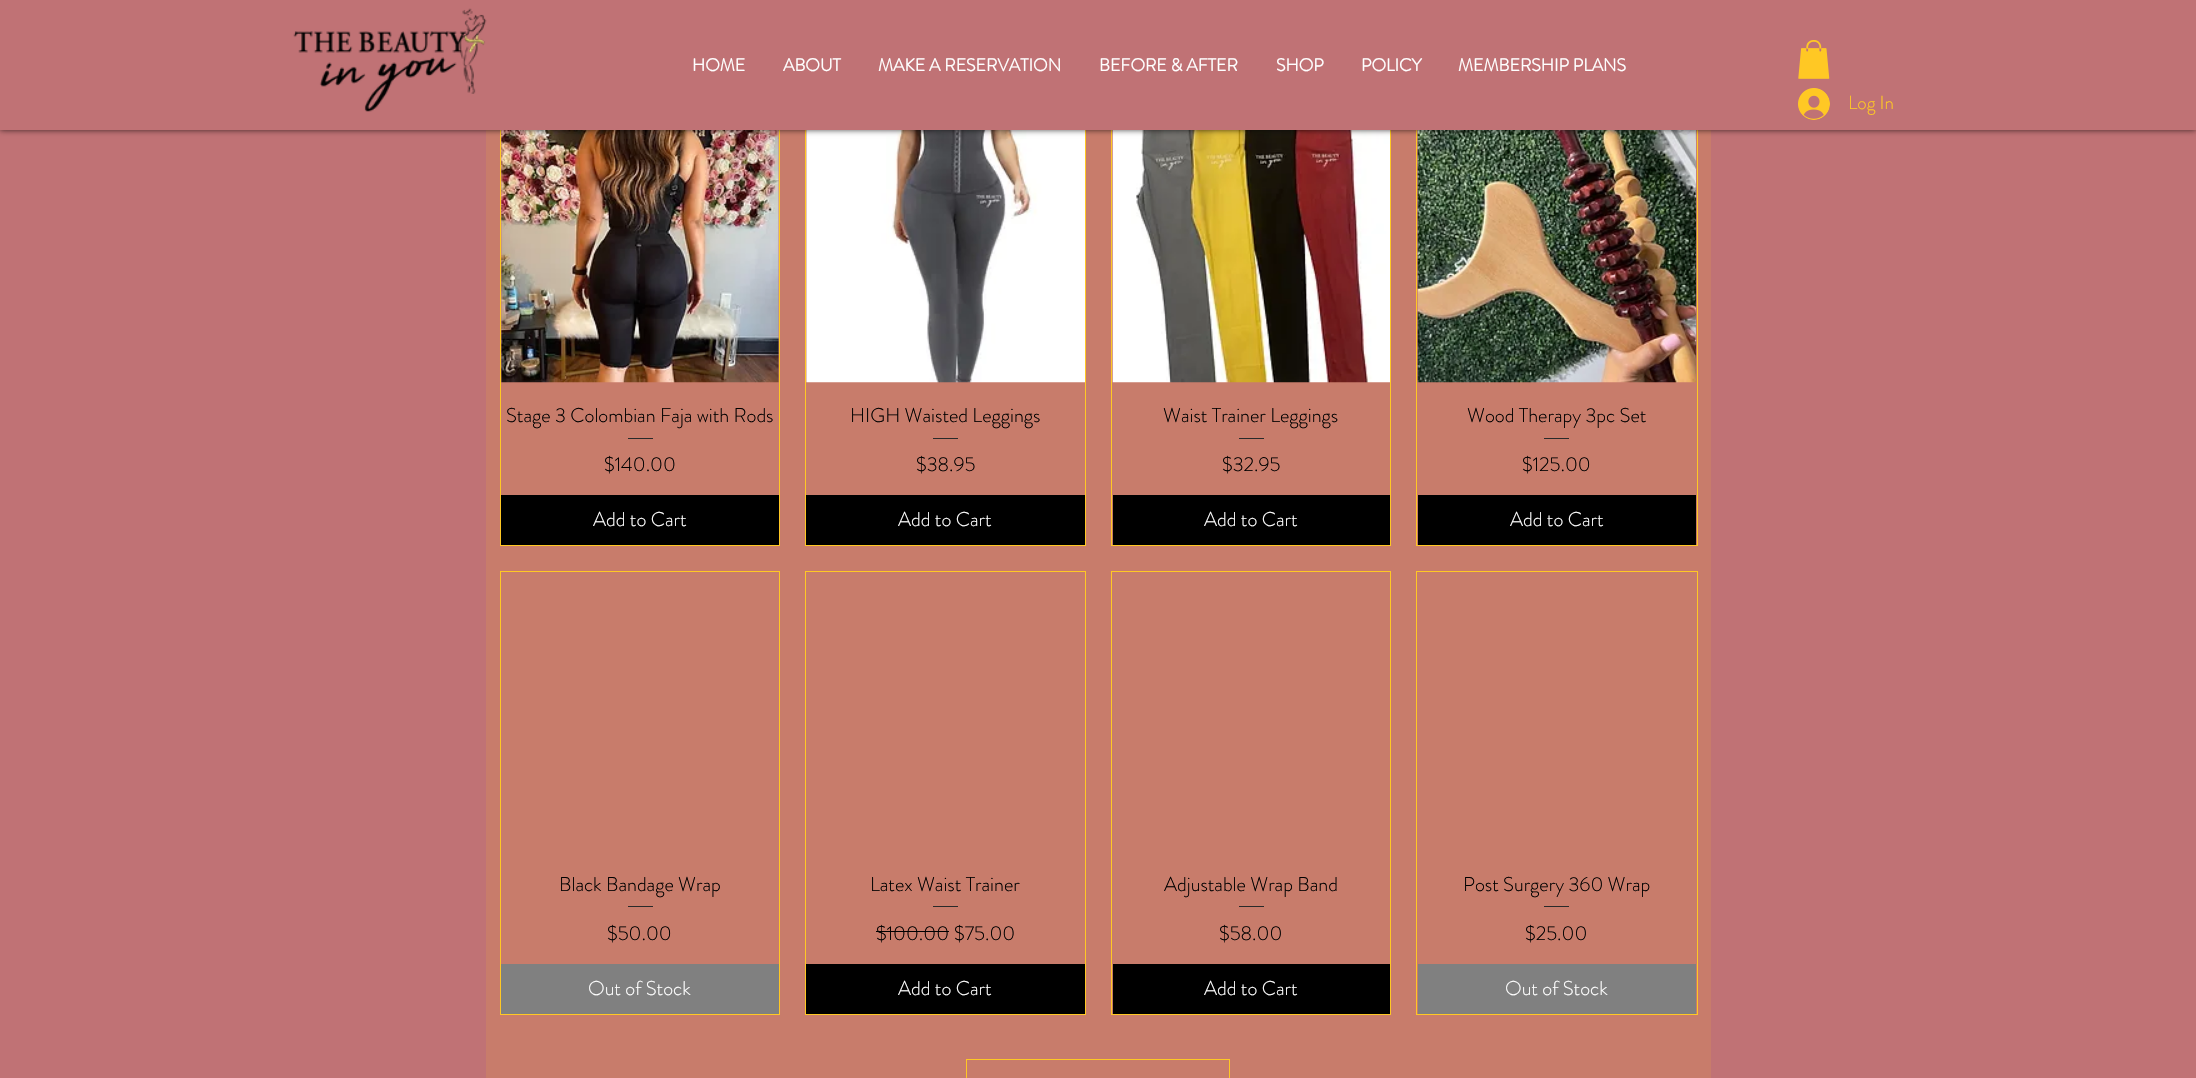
static SkFont makeFont(const char* family, int weight, float size, bool italic = false) {
  SkFontStyle style(weight, SkFontStyle::kNormal_Width,
    italic ? SkFontStyle::kItalic_Slant : SkFontStyle::kUpright_Slant);
  SkFont result(fontMgr->matchFamilyStyle(family, style), size);
  result.setSubpixel(true);
  return result;
}

static void text(SkCanvas* c, const char* s, float x, float y, const SkFont& font, SkColor color) {
  SkPaint ink(SkColor4f::FromColor(color));
  ink.setAntiAlias(true);
  c->drawString(s, x, y, font, ink);
}

static void box(SkCanvas* c, float l, float t, float r, float b, SkColor color) {
  SkPaint ink(SkColor4f::FromColor(color));
  ink.setAntiAlias(true);
  c->drawRect(SkRect::MakeLTRB(l, t, r, b), ink);
}

static void picture(SkCanvas* c, const char* path, float l, float t, float r, float b) {
  auto image = SkImages::DeferredFromEncodedData(SkData::MakeFromFileName(path));
  c->drawImageRect(image, SkRect::MakeLTRB(l, t, r, b), SkSamplingOptions());
}

void draw(SkCanvas* c) {
  SkPaint paint;
  paint.setAntiAlias(true);
  c->clear(0xffc07275);
  box(c, 486, 130, 1711, 1078, 0xffc87c6b);
  paint.setStyle(SkPaint::kStroke_Style);
  paint.setStrokeWidth(1);
  paint.setColor(0xffffc824);
  c->drawRect(SkRect::MakeLTRB(500.5f, 103.5f, 779.5f, 545.5f), paint);
  picture(c, "img_04.png", 501, 130, 779, 383);
  c->drawRect(SkRect::MakeLTRB(805.5f, 103.5f, 1085.5f, 545.5f), paint);
  picture(c, "img_05.png", 806, 130, 1085, 383);
  c->drawRect(SkRect::MakeLTRB(1111.5f, 103.5f, 1390.5f, 545.5f), paint);
  picture(c, "img_06.png", 1112, 130, 1390, 383);
  c->drawRect(SkRect::MakeLTRB(1416.5f, 103.5f, 1697.5f, 545.5f), paint);
  picture(c, "img_07.png", 1417, 130, 1697, 383);
  paint.setStyle(SkPaint::kFill_Style);
  paint.setColor(0xb3000000);
  paint.setMaskFilter(SkMaskFilter::MakeBlur(kNormal_SkBlurStyle, 3));
  c->drawRect(SkRect::MakeLTRB(0, 0, 2196, 130), paint);
  paint.setMaskFilter(nullptr);
  box(c, 0, 0, 2196, 130, 0xffc07275);
  picture(c, "img_01.png", 293, 8, 487, 112);
  SkFont face1 = makeFont("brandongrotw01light", 700, 17.5f);
  text(c, "HOME", 692, 71, face1, 0xffffffff);
  text(c, "ABOUT", 783, 71, face1, 0xffffffff);
  text(c, "MAKE A RESERVATION", 878, 71, face1, 0xffffffff);
  text(c, "BEFORE & AFTER", 1099, 71, face1, 0xffffffff);
  text(c, "SHOP", 1276, 71, face1, 0xffffffff);
  text(c, "POLICY", 1361, 71, face1, 0xffffffff);
  text(c, "MEMBERSHIP PLANS", 1458, 71, face1, 0xffffffff);
  picture(c, "img_02.png", 1798, 40, 1830, 79);
  picture(c, "img_03.png", 1798, 88, 1830, 120);
  SkFont face2 = makeFont("brandongrotw01light", 300, 19);
  text(c, "Log In", 1848, 109, face2, 0xffffc824);
  SkFont face3 = makeFont("brandongrotw01light", 300, 20);
  text(c, "Stage 3 Colombian Faja with Rods", 506, 422, face3, 0xff000000);
  box(c, 628, 438, 653, 439, 0xff2a2a2a);
  text(c, "$140.00", 604, 471, face3, 0xff000000);
  box(c, 501, 495, 779, 545, 0xff000000);
  text(c, "Add to Cart", 593, 526, face3, 0xffffffff);
  text(c, "HIGH Waisted Leggings", 850, 422, face3, 0xff000000);
  box(c, 933, 438, 958, 439, 0xff2a2a2a);
  text(c, "$38.95", 916, 471, face3, 0xff000000);
  box(c, 806, 495, 1085, 545, 0xff000000);
  text(c, "Add to Cart", 898, 526, face3, 0xffffffff);
  text(c, "Waist Trainer Leggings", 1163, 422, face3, 0xff000000);
  box(c, 1239, 438, 1264, 439, 0xff2a2a2a);
  text(c, "$32.95", 1222, 471, face3, 0xff000000);
  box(c, 1113, 495, 1390, 545, 0xff000000);
  text(c, "Add to Cart", 1204, 526, face3, 0xffffffff);
  text(c, "Wood Therapy 3pc Set", 1467, 422, face3, 0xff000000);
  box(c, 1544, 438, 1569, 439, 0xff2a2a2a);
  text(c, "$125.00", 1522, 471, face3, 0xff000000);
  box(c, 1418, 495, 1696, 545, 0xff000000);
  text(c, "Add to Cart", 1510, 526, face3, 0xffffffff);
  paint.setStyle(SkPaint::kStroke_Style);
  paint.setColor(0xffffc824);
  c->drawRect(SkRect::MakeLTRB(500.5f, 571.5f, 779.5f, 1014.5f), paint);
  text(c, "Black Bandage Wrap", 559, 891, face3, 0xff000000);
  box(c, 628, 906, 653, 907, 0xff2a2a2a);
  text(c, "$50.00", 607, 940, face3, 0xff000000);
  box(c, 501, 964, 779, 1014, 0xff808080);
  text(c, "Out of Stock", 588, 995, face3, 0xffffffff);
  c->drawRect(SkRect::MakeLTRB(805.5f, 571.5f, 1085.5f, 1014.5f), paint);
  text(c, "Latex Waist Trainer", 870, 891, face3, 0xff000000);
  box(c, 933, 906, 958, 907, 0xff2a2a2a);
  text(c, "$100.00", 876, 940, face3, 0xff000000);
  box(c, 876, 931, 949, 932, 0xff000000);
  text(c, "$75.00", 954, 940, face3, 0xff000000);
  box(c, 806, 964, 1085, 1014, 0xff000000);
  text(c, "Add to Cart", 898, 995, face3, 0xffffffff);
  c->drawRect(SkRect::MakeLTRB(1111.5f, 571.5f, 1390.5f, 1014.5f), paint);
  text(c, "Adjustable Wrap Band", 1164, 891, face3, 0xff000000);
  box(c, 1239, 906, 1264, 907, 0xff2a2a2a);
  text(c, "$58.00", 1219, 940, face3, 0xff000000);
  box(c, 1113, 964, 1390, 1014, 0xff000000);
  text(c, "Add to Cart", 1204, 995, face3, 0xffffffff);
  c->drawRect(SkRect::MakeLTRB(1416.5f, 571.5f, 1697.5f, 1014.5f), paint);
  text(c, "Post Surgery 360 Wrap", 1463, 891, face3, 0xff000000);
  box(c, 1544, 906, 1569, 907, 0xff2a2a2a);
  text(c, "$25.00", 1525, 940, face3, 0xff000000);
  box(c, 1418, 964, 1696, 1014, 0xff808080);
  text(c, "Out of Stock", 1505, 995, face3, 0xffffffff);
  c->drawRect(SkRect::MakeLTRB(966.5f, 1059.5f, 1229.5f, 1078.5f), paint);
}
